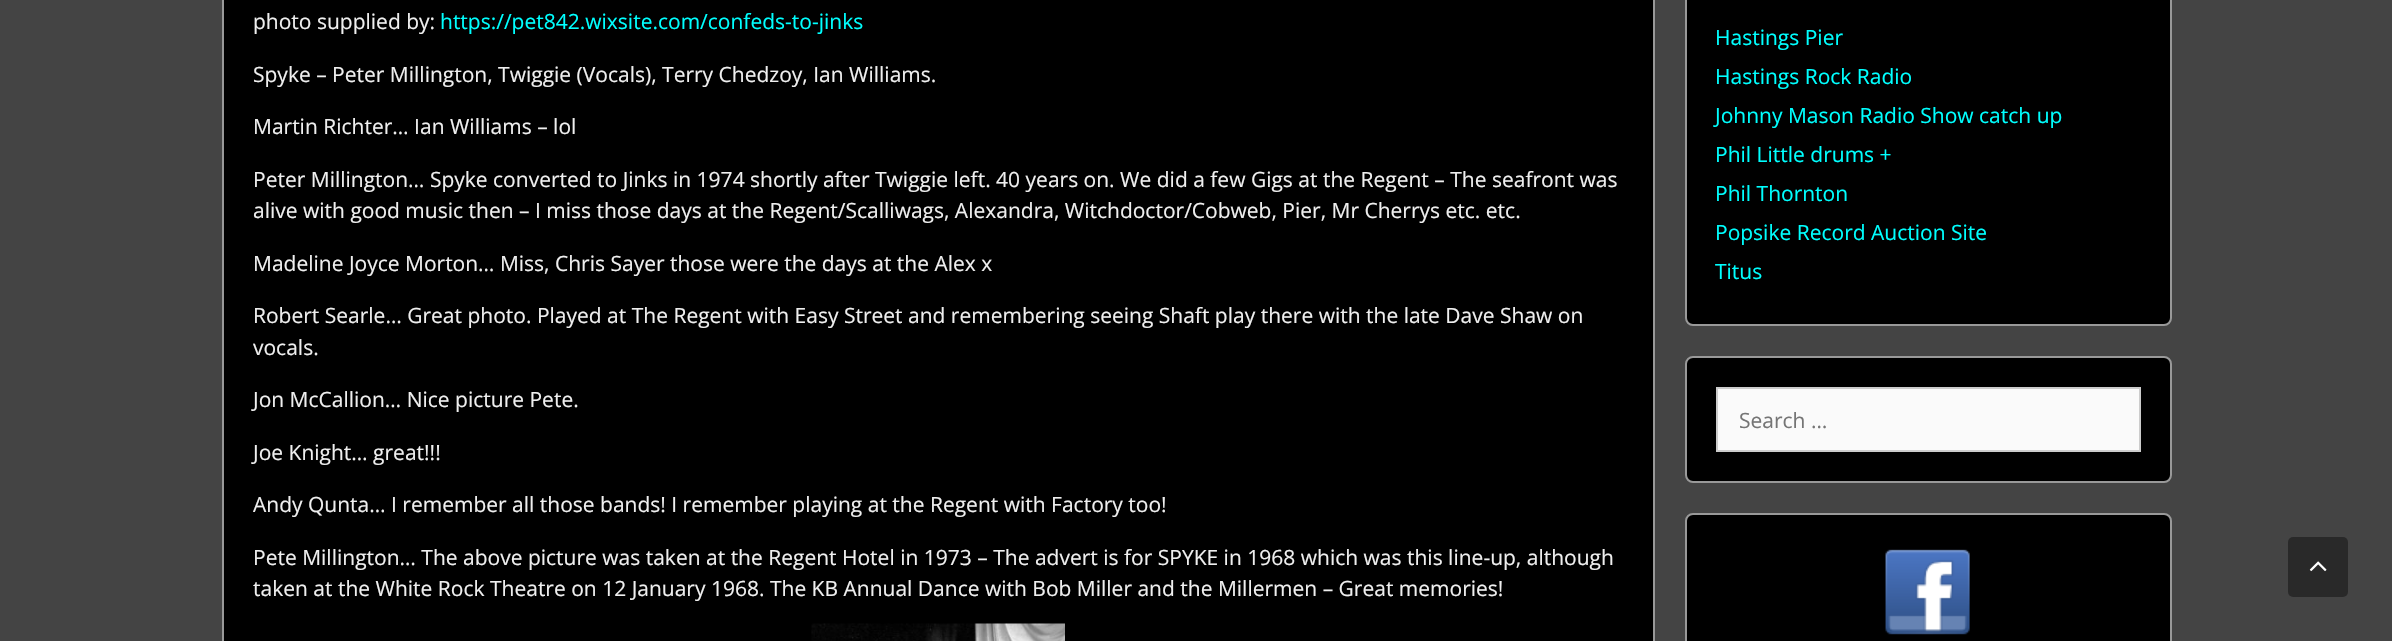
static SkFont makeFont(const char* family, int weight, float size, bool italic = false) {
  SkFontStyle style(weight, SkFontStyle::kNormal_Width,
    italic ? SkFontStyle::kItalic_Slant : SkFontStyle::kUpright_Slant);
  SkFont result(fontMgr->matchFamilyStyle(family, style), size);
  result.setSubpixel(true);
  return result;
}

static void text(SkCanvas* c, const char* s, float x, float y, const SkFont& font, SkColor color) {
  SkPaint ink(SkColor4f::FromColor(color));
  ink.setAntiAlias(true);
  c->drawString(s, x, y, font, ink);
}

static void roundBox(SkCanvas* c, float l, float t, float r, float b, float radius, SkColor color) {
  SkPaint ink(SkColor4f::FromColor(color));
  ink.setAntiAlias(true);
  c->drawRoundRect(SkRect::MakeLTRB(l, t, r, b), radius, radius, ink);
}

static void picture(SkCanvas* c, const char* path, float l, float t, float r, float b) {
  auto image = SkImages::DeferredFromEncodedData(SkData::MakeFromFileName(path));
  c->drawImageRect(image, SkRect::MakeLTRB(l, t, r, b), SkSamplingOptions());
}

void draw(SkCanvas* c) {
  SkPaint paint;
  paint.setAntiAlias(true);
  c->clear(0xff444444);
  paint.setColor(0xff000000);
  c->drawRect(SkRect::MakeLTRB(223, -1, 1654, 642), paint);
  paint.setStyle(SkPaint::kStroke_Style);
  paint.setStrokeWidth(2);
  paint.setColor(0xff999999);
  c->drawRect(SkRect::MakeLTRB(223, -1, 1654, 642), paint);
  SkFont face1 = makeFont("Open Sans", 400, 21);
  text(c, "photo supplied by:", 253, 29, face1, 0xffefefef);
  text(c, "https://pet842.wixsite.com/confeds-to-jinks", 440, 29, face1, 0xff00ffff);
  text(c, "Spyke – Peter Millington, Twiggie (Vocals), Terry Chedzoy, Ian Williams.", 253, 82, face1, 0xffefefef);
  text(c, "Martin Richter… Ian Williams – lol", 253, 134, face1, 0xffefefef);
  text(c, "Peter Millington… Spyke converted to Jinks in 1974 shortly after Twiggie left. 40 years on. We did a few Gigs at the Regent – The seafront was", 253, 187, face1, 0xffefefef);
  text(c, "alive with good music then – I miss those days at the Regent/Scalliwags, Alexandra, Witchdoctor/Cobweb, Pier, Mr Cherrys etc. etc.", 253, 218, face1, 0xffefefef);
  text(c, "Madeline Joyce Morton… Miss, Chris Sayer those were the days at the Alex x", 253, 271, face1, 0xffefefef);
  text(c, "Robert Searle… Great photo. Played at The Regent with Easy Street and remembering seeing Shaft play there with the late Dave Shaw on", 253, 323, face1, 0xffefefef);
  text(c, "vocals.", 253, 355, face1, 0xffefefef);
  text(c, "Jon McCallion… Nice picture Pete.", 253, 407, face1, 0xffefefef);
  text(c, "Joe Knight… great!!!", 253, 460, face1, 0xffefefef);
  text(c, "Andy Qunta… I remember all those bands! I remember playing at the Regent with Factory too!", 253, 512, face1, 0xffefefef);
  text(c, "Pete Millington… The above picture was taken at the Regent Hotel in 1973 – The advert is for SPYKE in 1968 which was this line-up, although", 253, 565, face1, 0xffefefef);
  text(c, "taken at the White Rock Theatre on 12 January 1968. The KB Annual Dance with Bob Miller and the Millermen – Great memories!", 253, 596, face1, 0xffefefef);
  picture(c, "img_01.png", 811, 623, 1065, 641);
  paint.setStyle(SkPaint::kFill_Style);
  paint.setColor(0xff000000);
  c->drawRoundRect(SkRect::MakeLTRB(1686, -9, 2171, 325), 7, 7, paint);
  paint.setStyle(SkPaint::kStroke_Style);
  paint.setColor(0xff999999);
  c->drawRoundRect(SkRect::MakeLTRB(1686, -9, 2171, 325), 7, 7, paint);
  text(c, "Hastings Pier", 1715, 45, face1, 0xff00ffff);
  text(c, "Hastings Rock Radio", 1715, 84, face1, 0xff00ffff);
  text(c, "Johnny Mason Radio Show catch up", 1715, 123, face1, 0xff00ffff);
  text(c, "Phil Little drums +", 1715, 162, face1, 0xff00ffff);
  text(c, "Phil Thornton", 1715, 201, face1, 0xff00ffff);
  text(c, "Popsike Record Auction Site", 1715, 240, face1, 0xff00ffff);
  text(c, "Titus", 1715, 279, face1, 0xff00ffff);
  paint.setStyle(SkPaint::kFill_Style);
  paint.setColor(0xff000000);
  c->drawRoundRect(SkRect::MakeLTRB(1686, 357, 2171, 482), 7, 7, paint);
  paint.setStyle(SkPaint::kStroke_Style);
  paint.setColor(0xff999999);
  c->drawRoundRect(SkRect::MakeLTRB(1686, 357, 2171, 482), 7, 7, paint);
  paint.setStyle(SkPaint::kFill_Style);
  paint.setColor(0xfffafafa);
  c->drawRect(SkRect::MakeLTRB(1717, 388, 2140, 451), paint);
  paint.setStyle(SkPaint::kStroke_Style);
  paint.setColor(0xffcccccc);
  c->drawRect(SkRect::MakeLTRB(1717, 388, 2140, 451), paint);
  text(c, "Search …", 1739, 428, face1, 0xff757575);
  paint.setStyle(SkPaint::kFill_Style);
  paint.setColor(0xff000000);
  c->drawRoundRect(SkRect::MakeLTRB(1686, 514, 2171, 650), 7, 7, paint);
  paint.setStyle(SkPaint::kStroke_Style);
  paint.setColor(0xff999999);
  c->drawRoundRect(SkRect::MakeLTRB(1686, 514, 2171, 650), 7, 7, paint);
  picture(c, "img_02.png", 1885, 549, 1970, 635);
  roundBox(c, 2288, 537, 2348, 597, 5, 0xff292929);
  picture(c, "img_03.png", 2309, 561, 2327, 572);
}
